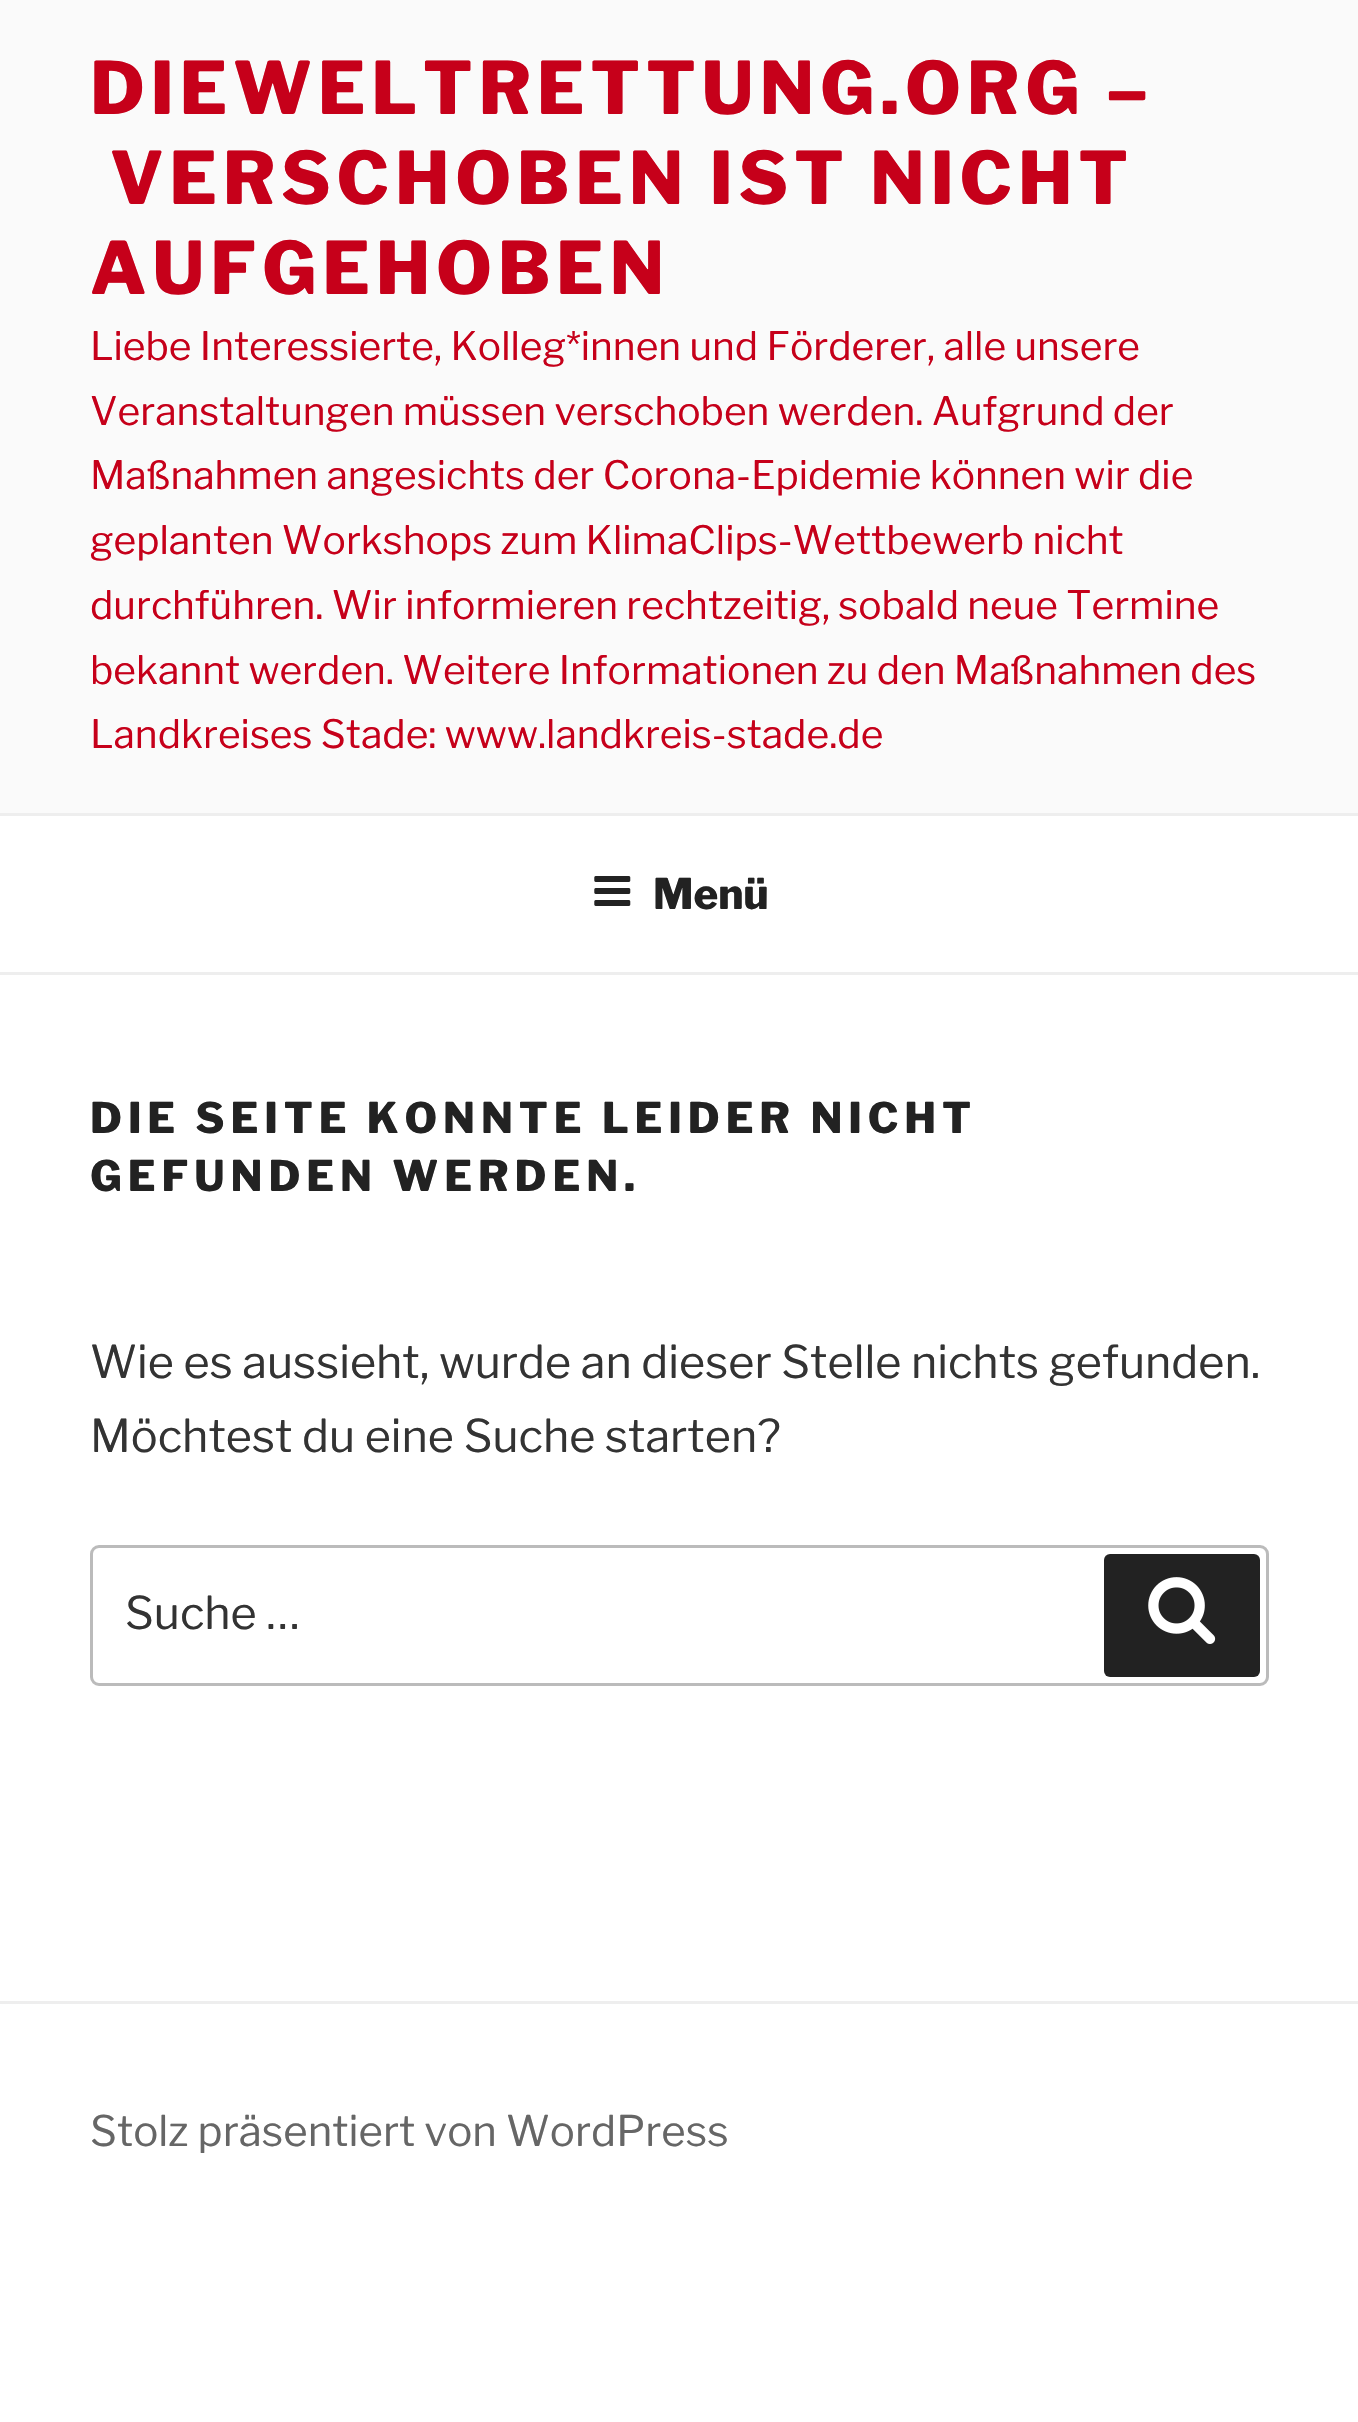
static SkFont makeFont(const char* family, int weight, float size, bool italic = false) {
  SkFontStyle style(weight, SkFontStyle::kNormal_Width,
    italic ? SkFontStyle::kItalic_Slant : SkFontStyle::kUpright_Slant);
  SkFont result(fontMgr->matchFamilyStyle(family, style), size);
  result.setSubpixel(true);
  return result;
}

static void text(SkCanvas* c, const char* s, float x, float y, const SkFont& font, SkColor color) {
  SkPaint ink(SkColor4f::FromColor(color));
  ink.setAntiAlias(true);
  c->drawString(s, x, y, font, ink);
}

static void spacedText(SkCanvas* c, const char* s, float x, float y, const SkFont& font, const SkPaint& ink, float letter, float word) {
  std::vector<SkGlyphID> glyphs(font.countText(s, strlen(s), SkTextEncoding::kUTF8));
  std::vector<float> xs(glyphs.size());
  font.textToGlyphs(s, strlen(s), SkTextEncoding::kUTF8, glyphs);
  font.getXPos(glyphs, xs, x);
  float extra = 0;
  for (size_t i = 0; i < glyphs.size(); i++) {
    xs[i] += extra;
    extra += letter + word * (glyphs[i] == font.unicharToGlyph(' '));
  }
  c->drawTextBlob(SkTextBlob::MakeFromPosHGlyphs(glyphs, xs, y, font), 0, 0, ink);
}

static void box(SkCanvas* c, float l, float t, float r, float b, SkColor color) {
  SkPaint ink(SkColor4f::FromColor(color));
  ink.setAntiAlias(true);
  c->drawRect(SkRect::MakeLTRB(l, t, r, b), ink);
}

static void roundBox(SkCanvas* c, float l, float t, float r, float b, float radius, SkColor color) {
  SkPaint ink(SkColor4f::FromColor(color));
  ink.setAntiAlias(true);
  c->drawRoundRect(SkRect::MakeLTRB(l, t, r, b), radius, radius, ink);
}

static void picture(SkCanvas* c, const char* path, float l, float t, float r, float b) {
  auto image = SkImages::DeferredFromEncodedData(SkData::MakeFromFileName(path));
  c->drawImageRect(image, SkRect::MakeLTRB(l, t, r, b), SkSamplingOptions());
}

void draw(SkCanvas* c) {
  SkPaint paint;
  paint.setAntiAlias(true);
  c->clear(0xffffffff);
  box(c, 0, 0, 1358, 813, 0xfffafafa);
  SkFont face1 = makeFont("Libre Franklin", 800, 72);
  paint.setColor(0xffc6001a);
  spacedText(c, "DIEWELTRETTUNG.ORG –", 90, 114, face1, paint, 5.75f, 0);
  spacedText(c, "VERSCHOBEN IST NICHT", 110, 204, face1, paint, 5.75f, 0);
  spacedText(c, "AUFGEHOBEN", 90, 294, face1, paint, 5.75f, 0);
  SkFont face2 = makeFont("Libre Franklin", 400, 39);
  text(c, "Liebe Interessierte, Kolleg*innen und Förderer, alle unsere", 90, 360, face2, 0xffc6001a);
  text(c, "Veranstaltungen müssen verschoben werden. Aufgrund der", 90, 425, face2, 0xffc6001a);
  text(c, "Maßnahmen angesichts der Corona-Epidemie können wir die", 90, 489, face2, 0xffc6001a);
  text(c, "geplanten Workshops zum KlimaClips-Wettbewerb nicht", 90, 554, face2, 0xffc6001a);
  text(c, "durchführen. Wir informieren rechtzeitig, sobald neue Termine", 90, 619, face2, 0xffc6001a);
  text(c, "bekannt werden. Weitere Informationen zu den Maßnahmen des", 90, 684, face2, 0xffc6001a);
  text(c, "Landkreises Stade: www.landkreis-stade.de", 90, 748, face2, 0xffc6001a);
  box(c, 0, 813, 1358, 816, 0xffeeeeee);
  box(c, 0, 972, 1358, 975, 0xffeeeeee);
  picture(c, "img_01.png", 594, 876, 631, 906);
  SkFont face3 = makeFont("Libre Franklin", 800, 42);
  text(c, "Menü", 653, 909, face3, 0xff222222);
  paint.setColor(0xff222222);
  spacedText(c, "DIE SEITE KONNTE LEIDER NICHT", 90, 1133, face3, paint, 5.9f, 0);
  spacedText(c, "GEFUNDEN WERDEN.", 90, 1191, face3, paint, 5.9f, 0);
  SkFont face4 = makeFont("Libre Franklin", 400, 45);
  text(c, "Wie es aussieht, wurde an dieser Stelle nichts gefunden.", 90, 1378, face4, 0xff333333);
  text(c, "Möchtest du eine Suche starten?", 90, 1452, face4, 0xff333333);
  paint.setStyle(SkPaint::kStroke_Style);
  paint.setStrokeWidth(3);
  paint.setColor(0xffbbbbbb);
  c->drawRoundRect(SkRect::MakeLTRB(91.5f, 1546.5f, 1267.5f, 1684.5f), 7.5f, 7.5f, paint);
  text(c, "Suche …", 125, 1629, face4, 0xff333333);
  roundBox(c, 1104, 1554, 1260, 1677, 6, 0xff222222);
  picture(c, "img_02.png", 1148, 1577, 1216, 1644);
  box(c, 0, 2001, 1358, 2004, 0xffeeeeee);
  SkFont face5 = makeFont("Libre Franklin", 400, 42);
  text(c, "Stolz präsentiert von WordPress", 90, 2146, face5, 0xff666666);
}
